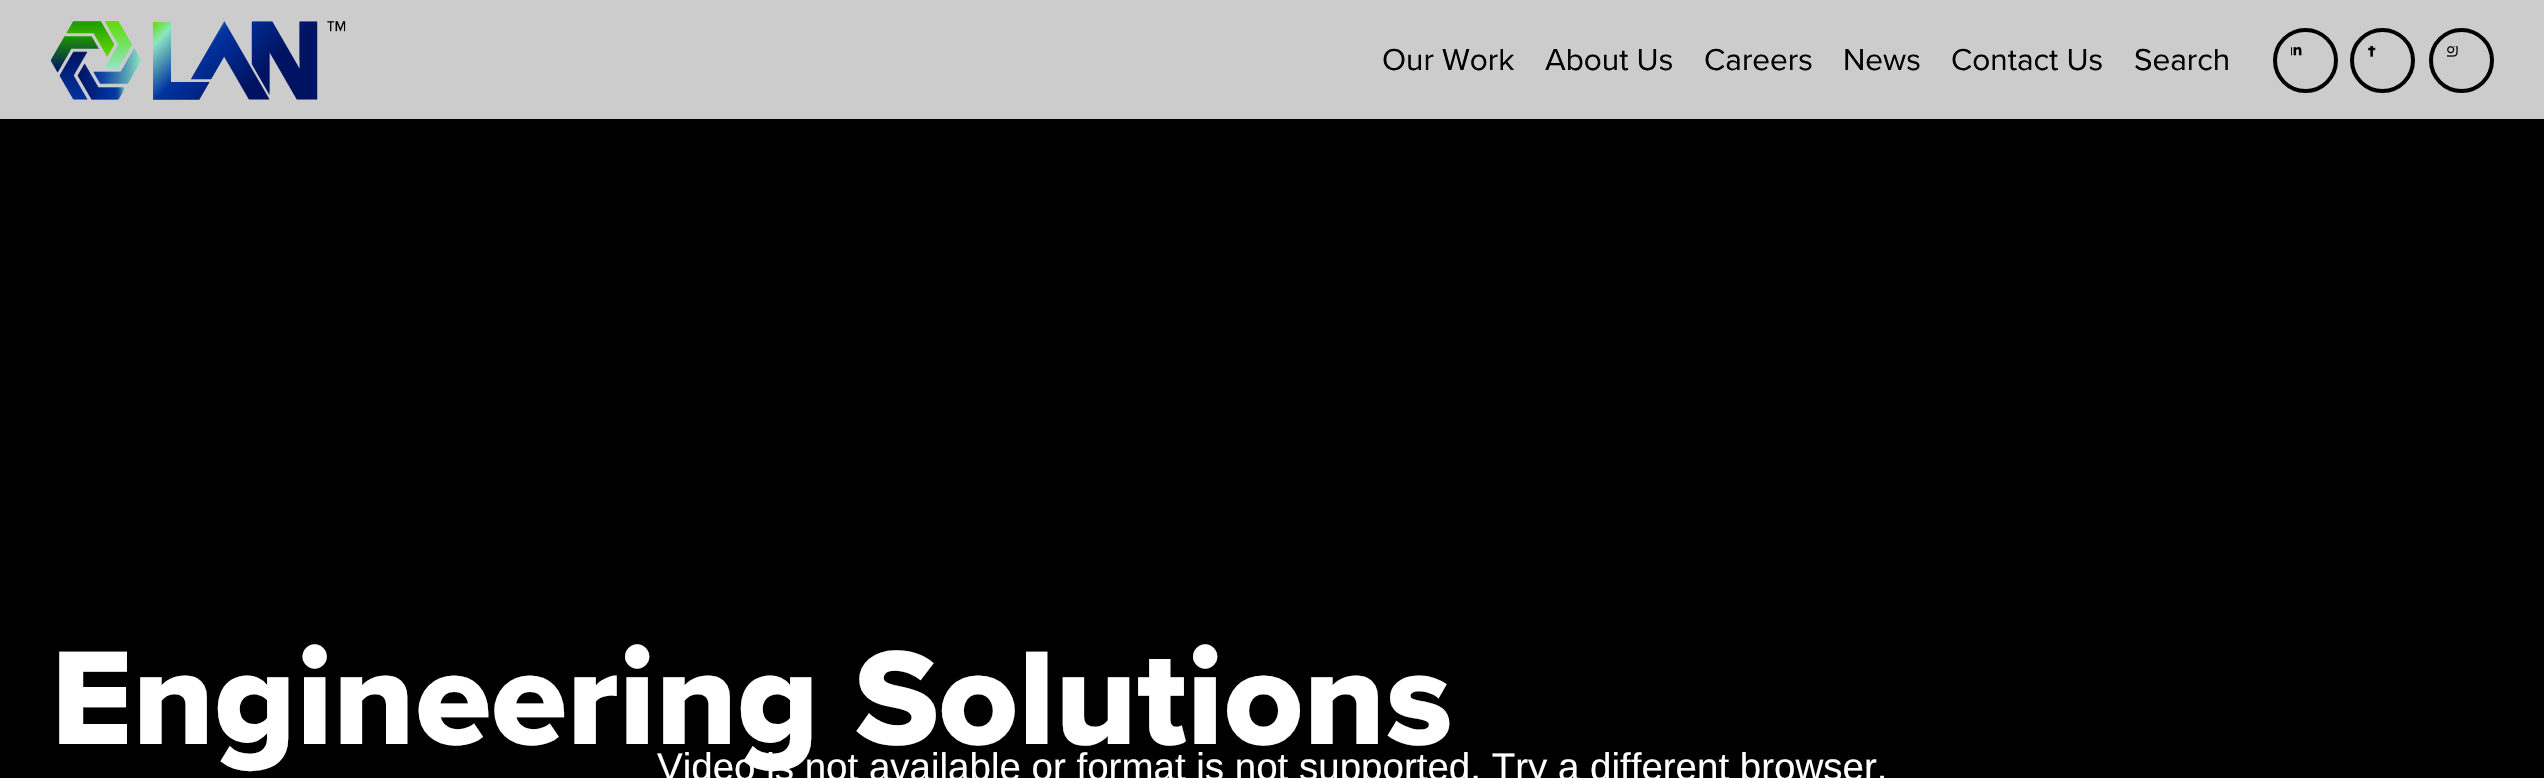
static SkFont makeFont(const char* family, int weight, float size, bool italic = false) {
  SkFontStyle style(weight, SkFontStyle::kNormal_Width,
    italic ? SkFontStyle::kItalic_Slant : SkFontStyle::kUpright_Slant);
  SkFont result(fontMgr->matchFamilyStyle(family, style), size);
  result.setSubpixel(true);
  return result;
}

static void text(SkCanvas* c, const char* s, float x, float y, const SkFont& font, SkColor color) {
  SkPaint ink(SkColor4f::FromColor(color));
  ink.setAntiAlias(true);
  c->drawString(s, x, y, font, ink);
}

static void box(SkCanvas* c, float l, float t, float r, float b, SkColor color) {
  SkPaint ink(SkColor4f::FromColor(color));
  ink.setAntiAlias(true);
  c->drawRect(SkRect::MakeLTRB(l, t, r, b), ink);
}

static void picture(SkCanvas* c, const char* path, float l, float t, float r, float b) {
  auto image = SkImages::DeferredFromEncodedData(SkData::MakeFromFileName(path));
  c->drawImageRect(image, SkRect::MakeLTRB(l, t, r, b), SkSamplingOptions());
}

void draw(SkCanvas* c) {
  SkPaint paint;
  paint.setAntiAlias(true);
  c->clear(0xff000000);
  box(c, 0, 0, 2544, 119, 0xffcccccc);
  picture(c, "img_01.png", 51, 21, 346, 100);
  SkFont face1 = makeFont("Proxima Nova", 400, 31.5f);
  text(c, "Our Work", 1382, 70, face1, 0xff000000);
  text(c, "About Us", 1545, 70, face1, 0xff000000);
  text(c, "Careers", 1704, 70, face1, 0xff000000);
  text(c, "News", 1843, 70, face1, 0xff000000);
  text(c, "Contact Us", 1951, 70, face1, 0xff000000);
  text(c, "Search", 2134, 70, face1, 0xff000000);
  paint.setStyle(SkPaint::kStroke_Style);
  paint.setStrokeWidth(4);
  paint.setColor(0xff000000);
  c->drawCircle(2305.5f, 60.5f, 30.5f, paint);
  picture(c, "img_02.png", 2291, 47, 2302, 56);
  c->drawCircle(2382.5f, 60.5f, 30.5f, paint);
  picture(c, "img_03.png", 2368, 46, 2376, 57);
  c->drawCircle(2461.5f, 60.5f, 30.5f, paint);
  picture(c, "img_04.png", 2447, 46, 2458, 57);
  SkFont face2 = makeFont("Liberation Sans", 400, 38.5f);
  text(c, "Video is not available or format is not supported. Try a different browser.", 657, 780, face2, 0xffffffff);
  SkFont face3 = makeFont("Proxima Nova", 800, 138.4f);
  text(c, "Engineering Solutions", 51, 744, face3, 0xffffffff);
}
